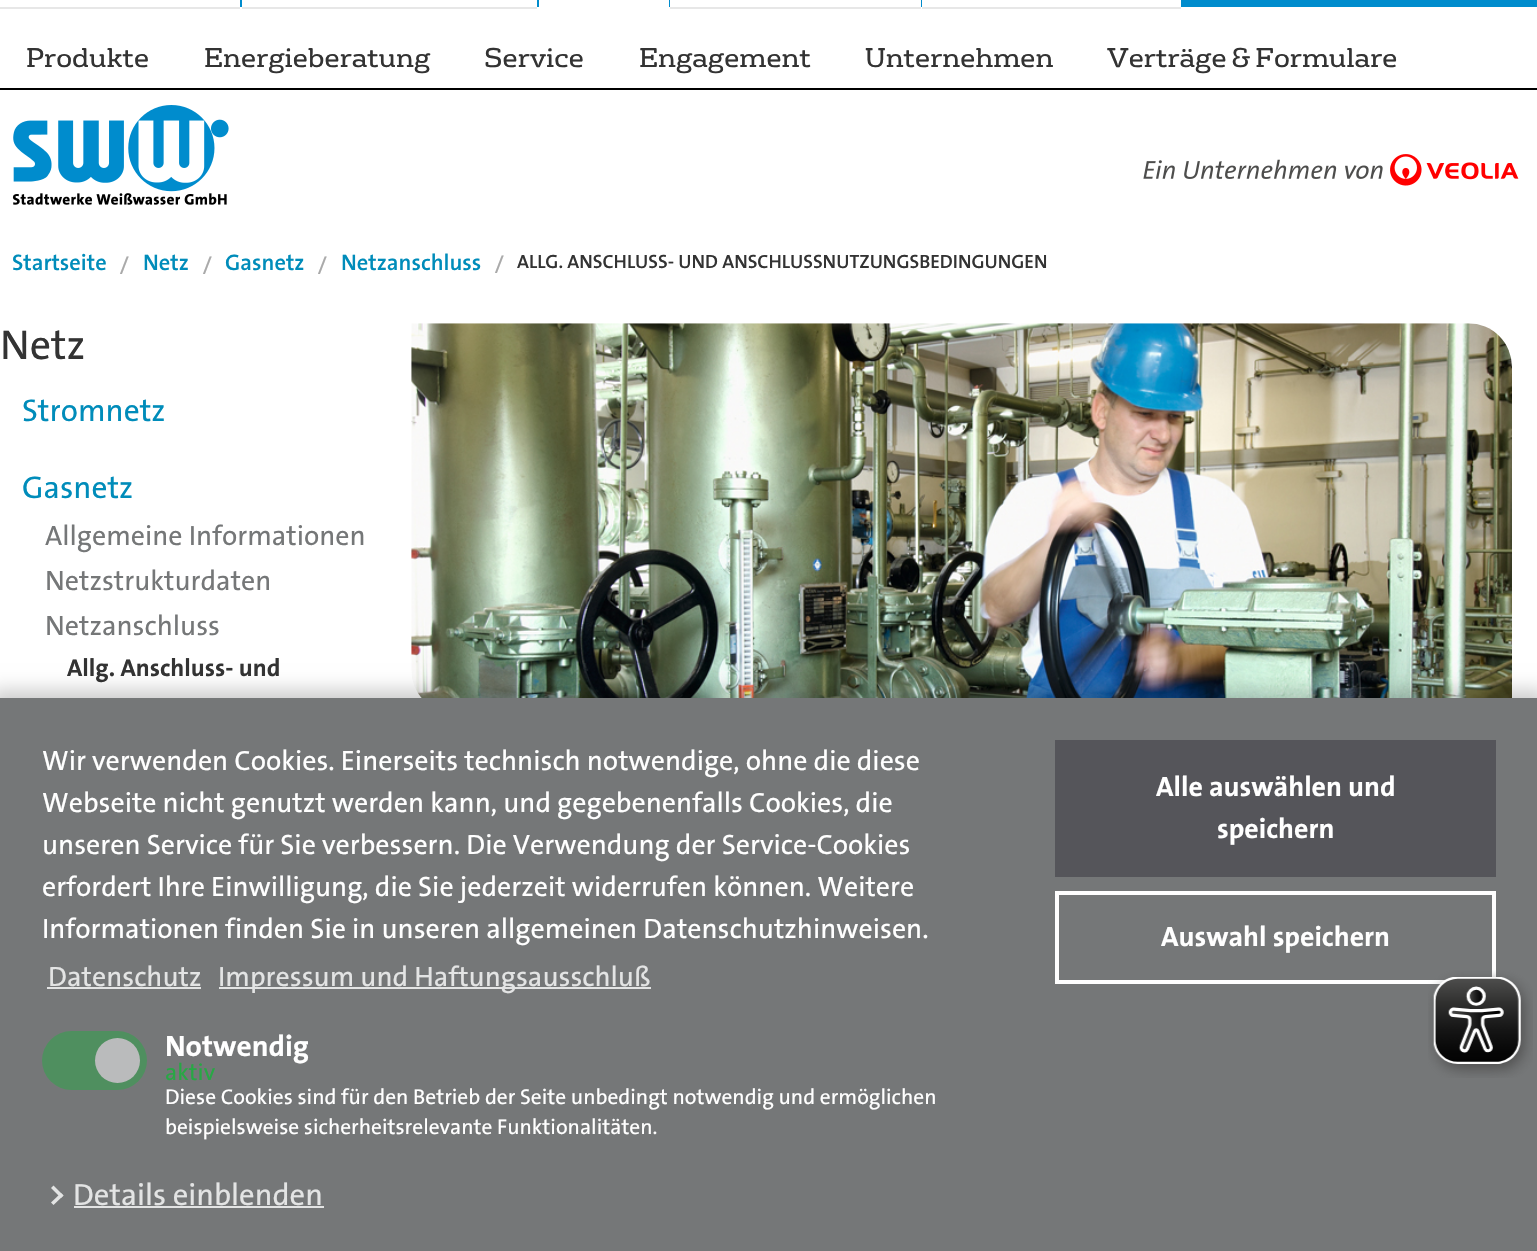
static SkFont makeFont(const char* family, int weight, float size, bool italic = false) {
  SkFontStyle style(weight, SkFontStyle::kNormal_Width,
    italic ? SkFontStyle::kItalic_Slant : SkFontStyle::kUpright_Slant);
  SkFont result(fontMgr->matchFamilyStyle(family, style), size);
  result.setSubpixel(true);
  return result;
}

static void text(SkCanvas* c, const char* s, float x, float y, const SkFont& font, SkColor color) {
  SkPaint ink(SkColor4f::FromColor(color));
  ink.setAntiAlias(true);
  c->drawString(s, x, y, font, ink);
}

static void box(SkCanvas* c, float l, float t, float r, float b, SkColor color) {
  SkPaint ink(SkColor4f::FromColor(color));
  ink.setAntiAlias(true);
  c->drawRect(SkRect::MakeLTRB(l, t, r, b), ink);
}

static void roundBox(SkCanvas* c, float l, float t, float r, float b, float radius, SkColor color) {
  SkPaint ink(SkColor4f::FromColor(color));
  ink.setAntiAlias(true);
  c->drawRoundRect(SkRect::MakeLTRB(l, t, r, b), radius, radius, ink);
}

static void picture(SkCanvas* c, const char* path, float l, float t, float r, float b) {
  auto image = SkImages::DeferredFromEncodedData(SkData::MakeFromFileName(path));
  c->drawImageRect(image, SkRect::MakeLTRB(l, t, r, b), SkSamplingOptions());
}

void draw(SkCanvas* c) {
  SkPaint paint;
  paint.setAntiAlias(true);
  c->clear(0xffffffff);
  box(c, 240, 0, 1537, 7, 0xff008ccd);
  box(c, 242, 7, 537, 9, 0xffe7e7e7);
  box(c, 242, 0, 537, 7, 0xffffffff);
  box(c, 539, 0, 669, 7, 0xffffffff);
  box(c, 670, 7, 921, 9, 0xffe7e7e7);
  box(c, 670, 0, 921, 7, 0xffffffff);
  box(c, 922, 7, 1181, 9, 0xffe7e7e7);
  box(c, 922, 0, 1181, 7, 0xffffffff);
  box(c, 0, 7, 240, 9, 0xffe7e7e7);
  box(c, 0, 88, 1537, 90, 0xff000000);
  SkFont face1 = makeFont("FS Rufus", 400, 26.25f);
  text(c, "Produkte", 26, 67, face1, 0xff333333);
  text(c, "Energieberatung", 204, 67, face1, 0xff333333);
  text(c, "Service", 484, 67, face1, 0xff333333);
  text(c, "Engagement", 639, 67, face1, 0xff333333);
  text(c, "Unternehmen", 865, 67, face1, 0xff333333);
  text(c, "Verträge & Formulare", 1107, 67, face1, 0xff333333);
  picture(c, "img_01.png", 12, 105, 229, 205);
  picture(c, "img_02.png", 1143, 154, 1519, 186);
  SkFont face2 = makeFont("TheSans", 600, 22.5f);
  text(c, "Startseite", 12, 270, face2, 0xff008cba);
  SkFont face3 = makeFont("TheSans", 600, 19.25f);
  text(c, "/", 120, 271, face3, 0xffaaaaaa);
  text(c, "Netz", 143, 270, face2, 0xff008cba);
  text(c, "/", 203, 271, face3, 0xffaaaaaa);
  text(c, "Gasnetz", 225, 270, face2, 0xff008cba);
  text(c, "/", 318, 271, face3, 0xffaaaaaa);
  text(c, "Netzanschluss", 341, 270, face2, 0xff008cba);
  text(c, "/", 495, 270, face3, 0xffaaaaaa);
  text(c, "ALLG. ANSCHLUSS- UND ANSCHLUSSNUTZUNGSBEDINGUNGEN", 517, 268, face3, 0xff333333);
  SkFont face4 = makeFont("TheSans", 400, 42);
  text(c, "Netz", 0, 359, face4, 0xff333333);
  SkFont face5 = makeFont("TheSans", 400, 31.5f);
  text(c, "Stromnetz", 22, 421, face5, 0xff008cba);
  text(c, "Gasnetz", 22, 498, face5, 0xff008cba);
  SkFont face6 = makeFont("TheSans", 400, 28);
  text(c, "Allgemeine Informationen", 45, 545, face6, 0xff757778);
  text(c, "Netzstrukturdaten", 45, 590, face6, 0xff757778);
  text(c, "Netzanschluss", 45, 635, face6, 0xff757778);
  SkFont face7 = makeFont("TheSans", 700, 24.5f);
  text(c, "Allg. Anschluss- und", 67, 676, face7, 0xff333333);
  picture(c, "img_03.png", 411, 323, 1512, 698);
  paint.setColor(0x33000000);
  paint.setMaskFilter(SkMaskFilter::MakeBlur(kNormal_SkBlurStyle, 9));
  c->drawRect(SkRect::MakeLTRB(-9, 690, 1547, 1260), paint);
  paint.setMaskFilter(nullptr);
  box(c, 0, 698, 1537, 1251, 0xff757778);
  text(c, "Wir verwenden Cookies. Einerseits technisch notwendige, ohne die diese", 42, 770, face6, 0xffffffff);
  text(c, "Webseite nicht genutzt werden kann, und gegebenenfalls Cookies, die", 42, 812, face6, 0xffffffff);
  text(c, "unseren Service für Sie verbessern. Die Verwendung der Service-Cookies", 42, 854, face6, 0xffffffff);
  text(c, "erfordert Ihre Einwilligung, die Sie jederzeit widerrufen können. Weitere", 42, 896, face6, 0xffffffff);
  text(c, "Informationen finden Sie in unseren allgemeinen Datenschutzhinweisen.", 42, 938, face6, 0xffffffff);
  text(c, "Datenschutz", 48, 986, face6, 0xffe3e4e4);
  box(c, 47, 987, 201, 989, 0xffe3e4e4);
  box(c, 219, 987, 651, 989, 0xffe3e4e4);
  text(c, "Impressum und Haftungsausschluß", 218, 986, face6, 0xffe3e4e4);
  roundBox(c, 42, 1031, 147, 1090, 29.5f, 0xff4f8f5f);
  paint.setColor(0xffbabbbc);
  c->drawCircle(117.5f, 1060.5f, 22.5f, paint);
  SkFont face8 = makeFont("TheSans", 700, 29.5f);
  text(c, "Notwendig", 165, 1056, face8, 0xffffffff);
  SkFont face9 = makeFont("TheSans", 400, 23.5f);
  text(c, "aktiv", 165, 1080, face9, 0xff28a745);
  SkFont face10 = makeFont("TheSans", 400, 21.45f);
  text(c, "Diese Cookies sind für den Betrieb der Seite unbedingt notwendig und ermöglichen", 165, 1104, face10, 0xffffffff);
  text(c, "beispielsweise sicherheitsrelevante Funktionalitäten.", 165, 1134, face10, 0xffffffff);
  paint.setColor(0xffe3e4e4);
  c->drawPath(SkPathBuilder().moveTo(53.5f, 1185.5f).lineTo(63.5f, 1195.5f).lineTo(61, 1198).lineTo(51, 1188).close().detach(), paint);
  c->drawPath(SkPathBuilder().moveTo(61, 1193).lineTo(63.5f, 1195.5f).lineTo(53.5f, 1205).lineTo(51, 1202.5f).close().detach(), paint);
  SkFont face11 = makeFont("TheSans", 400, 30.75f);
  text(c, "Details einblenden", 73, 1205, face11, 0xffe3e4e4);
  box(c, 74, 1206, 324, 1208, 0xffe3e4e4);
  box(c, 1055, 740, 1496, 877, 0xff55555a);
  SkFont face12 = makeFont("TheSans", 700, 28);
  text(c, "Alle auswählen und", 1156, 796, face12, 0xffffffff);
  text(c, "speichern", 1217, 838, face12, 0xffffffff);
  paint.setStyle(SkPaint::kStroke_Style);
  paint.setStrokeWidth(4);
  paint.setColor(0xffffffff);
  c->drawRect(SkRect::MakeLTRB(1057, 893, 1494, 982), paint);
  text(c, "Auswahl speichern", 1161, 946, face12, 0xffffffff);
  picture(c, "img_04.png", 1428, 970, 1533, 1078);
}
